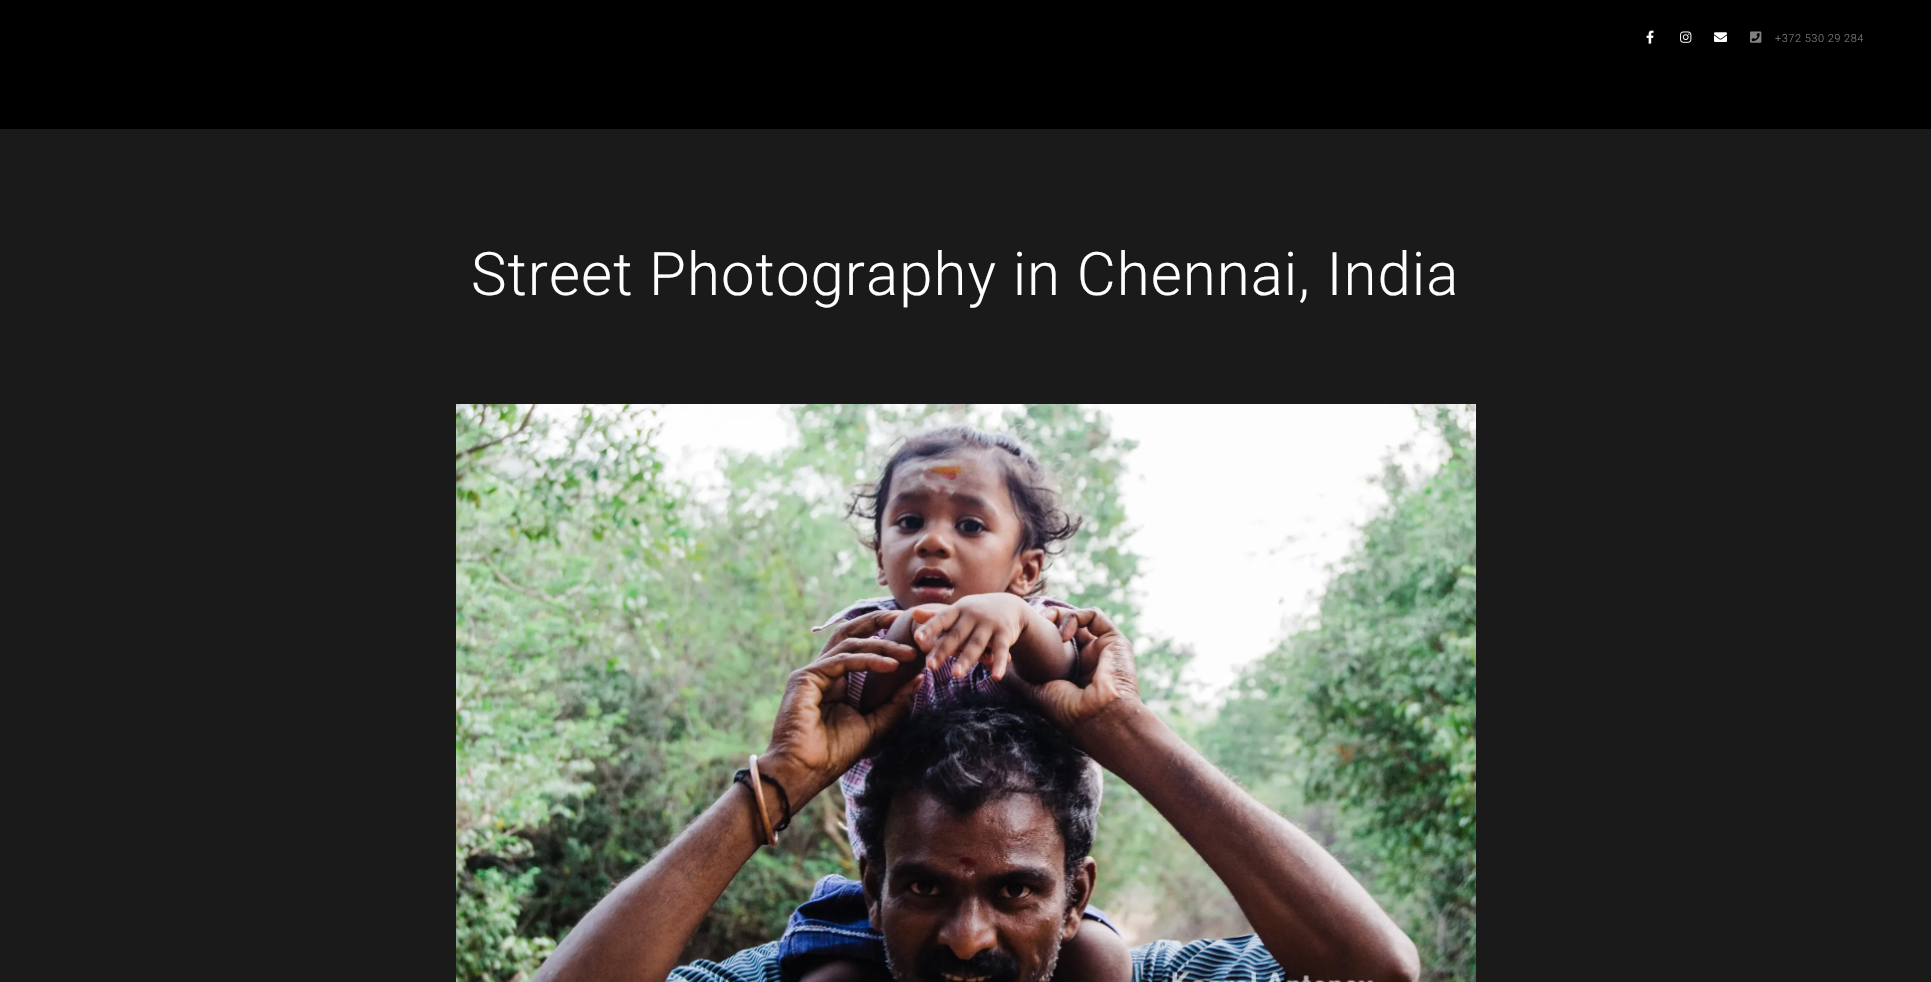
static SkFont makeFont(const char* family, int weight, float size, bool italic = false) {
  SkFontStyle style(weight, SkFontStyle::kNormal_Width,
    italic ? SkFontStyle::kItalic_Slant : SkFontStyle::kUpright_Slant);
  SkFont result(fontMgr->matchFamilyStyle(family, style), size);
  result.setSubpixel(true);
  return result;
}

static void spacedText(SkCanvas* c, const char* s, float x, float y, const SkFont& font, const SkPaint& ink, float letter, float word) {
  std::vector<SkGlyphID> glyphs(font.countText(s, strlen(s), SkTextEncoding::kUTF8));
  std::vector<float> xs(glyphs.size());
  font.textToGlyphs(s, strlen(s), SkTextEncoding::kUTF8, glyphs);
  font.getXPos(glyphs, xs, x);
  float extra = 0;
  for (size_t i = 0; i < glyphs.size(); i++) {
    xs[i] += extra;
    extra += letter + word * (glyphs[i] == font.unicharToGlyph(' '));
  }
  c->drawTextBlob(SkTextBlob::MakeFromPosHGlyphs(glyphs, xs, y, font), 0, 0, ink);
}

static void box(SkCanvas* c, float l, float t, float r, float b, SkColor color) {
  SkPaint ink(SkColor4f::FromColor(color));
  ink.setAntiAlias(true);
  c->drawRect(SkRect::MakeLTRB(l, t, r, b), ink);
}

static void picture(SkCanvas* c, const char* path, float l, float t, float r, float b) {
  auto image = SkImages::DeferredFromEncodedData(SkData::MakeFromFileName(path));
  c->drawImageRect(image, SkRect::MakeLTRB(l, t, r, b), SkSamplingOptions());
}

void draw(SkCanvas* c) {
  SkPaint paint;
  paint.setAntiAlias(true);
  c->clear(0xff1a1a1a);
  box(c, 0, 0, 1931, 129, 0xff000000);
  picture(c, "img_01.png", 1646, 30, 1654, 44);
  picture(c, "img_02.png", 1680, 31, 1692, 43);
  picture(c, "img_03.png", 1714, 32, 1727, 42);
  picture(c, "img_04.png", 1750, 31, 1762, 43);
  SkFont face1 = makeFont("Roboto", 300, 11);
  paint.setColor(0xff808080);
  spacedText(c, "+372 530 29 284", 1775, 42, face1, paint, 0.5f, 0);
  SkFont face2 = makeFont("Roboto", 300, 60);
  paint.setColor(0xffffffff);
  spacedText(c, "Street Photography in Chennai, India", 471, 295, face2, paint, 1, 0);
  picture(c, "img_05.png", 456, 404, 1476, 982);
}
